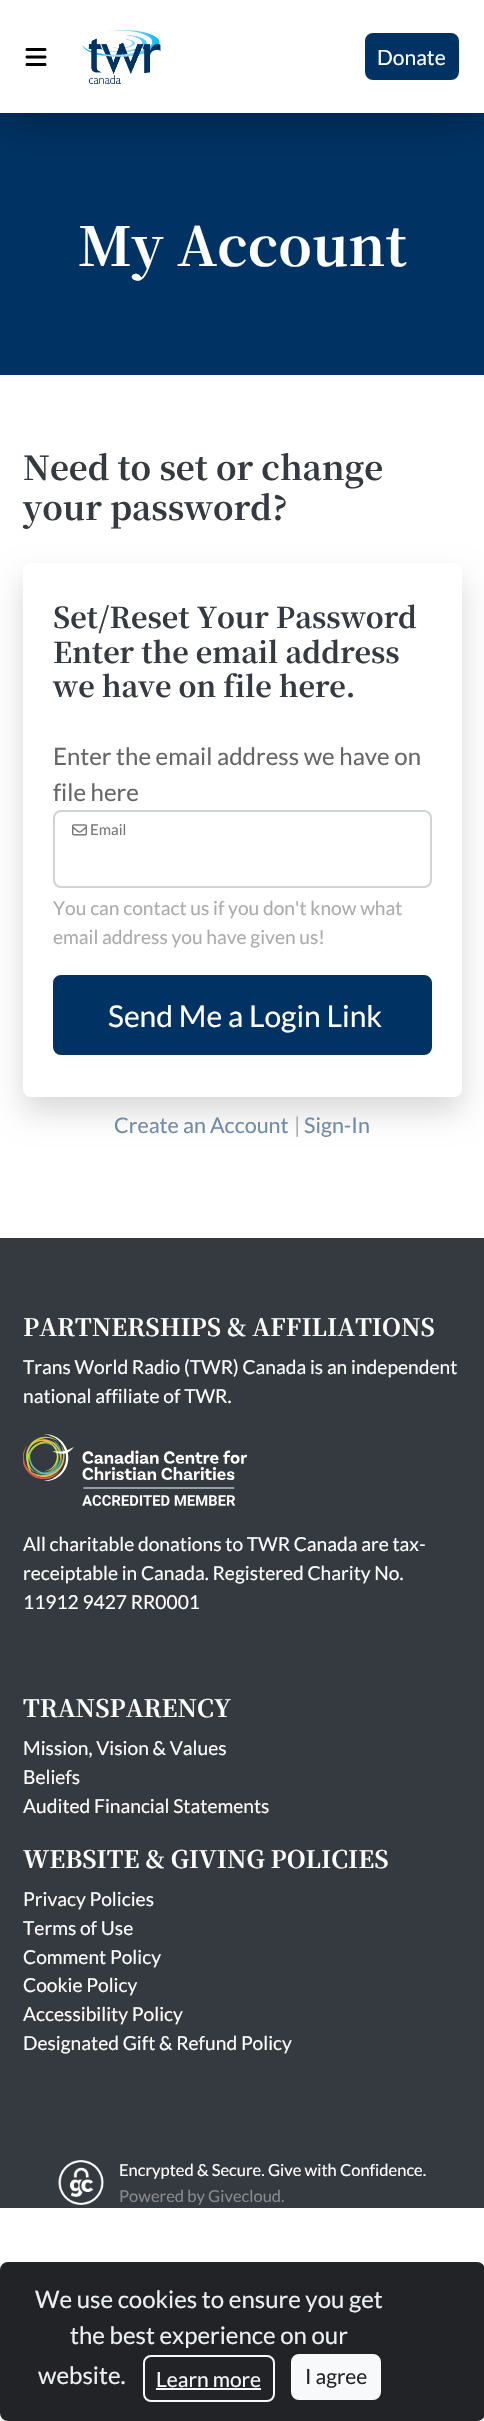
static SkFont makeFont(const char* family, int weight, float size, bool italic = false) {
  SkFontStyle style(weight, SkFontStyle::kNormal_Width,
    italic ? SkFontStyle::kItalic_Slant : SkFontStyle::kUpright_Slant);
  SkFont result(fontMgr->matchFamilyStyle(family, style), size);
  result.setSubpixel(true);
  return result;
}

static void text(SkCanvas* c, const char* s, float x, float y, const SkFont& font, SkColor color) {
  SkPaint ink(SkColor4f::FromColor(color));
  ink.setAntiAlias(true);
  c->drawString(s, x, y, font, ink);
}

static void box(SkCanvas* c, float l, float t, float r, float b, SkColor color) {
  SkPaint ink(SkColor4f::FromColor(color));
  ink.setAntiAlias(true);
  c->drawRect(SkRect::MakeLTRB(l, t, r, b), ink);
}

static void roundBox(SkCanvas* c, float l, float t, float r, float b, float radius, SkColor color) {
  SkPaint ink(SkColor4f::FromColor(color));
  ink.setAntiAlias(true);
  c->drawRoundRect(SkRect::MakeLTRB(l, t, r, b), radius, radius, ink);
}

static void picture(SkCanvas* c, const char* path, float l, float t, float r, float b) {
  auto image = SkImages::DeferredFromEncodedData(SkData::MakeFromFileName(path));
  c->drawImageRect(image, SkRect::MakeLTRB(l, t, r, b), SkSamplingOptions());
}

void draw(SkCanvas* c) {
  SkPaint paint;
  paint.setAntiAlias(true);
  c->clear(0xffffffff);
  box(c, 0, 113, 484, 375, 0xff003263);
  paint.setColor(0x66000000);
  paint.setMaskFilter(SkMaskFilter::MakeBlur(kNormal_SkBlurStyle, 22.5f));
  c->drawRect(SkRect::MakeLTRB(0, 0, 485, 113), paint);
  paint.setMaskFilter(nullptr);
  box(c, 0, 0, 484, 113, 0xffffffff);
  picture(c, "img_01.png", 25, 48, 47, 66);
  picture(c, "img_02.png", 82, 29, 161, 84);
  paint.setColor(0xff003263);
  c->drawRoundRect(SkRect::MakeLTRB(366, 34, 458, 79), 7, 7, paint);
  paint.setStyle(SkPaint::kStroke_Style);
  paint.setStrokeWidth(2);
  c->drawRoundRect(SkRect::MakeLTRB(366, 34, 458, 79), 7, 7, paint);
  SkFont face1 = makeFont("Lato", 400, 21);
  text(c, "Donate", 377, 65, face1, 0xffffffff);
  SkFont face2 = makeFont("Noto Serif JP", 700, 54);
  text(c, "My Account", 78, 266, face2, 0xffffffff);
  SkFont face3 = makeFont("Noto Serif JP", 700, 33);
  text(c, "Need to set or change", 23, 480, face3, 0xff343a40);
  text(c, "your password?", 23, 520, face3, 0xff343a40);
  paint.setStyle(SkPaint::kFill_Style);
  paint.setColor(0x26000000);
  paint.setMaskFilter(SkMaskFilter::MakeBlur(kNormal_SkBlurStyle, 15));
  c->drawRoundRect(SkRect::MakeLTRB(23, 578, 462, 1112), 8, 8, paint);
  paint.setMaskFilter(nullptr);
  roundBox(c, 23, 563, 462, 1097, 8, 0xffffffff);
  SkFont face4 = makeFont("Noto Serif JP", 700, 28.75f);
  text(c, "Set/Reset Your Password", 53, 628, face4, 0xff343a40);
  text(c, "Enter the email address", 53, 663, face4, 0xff343a40);
  text(c, "we have on file here.", 53, 697, face4, 0xff343a40);
  SkFont face5 = makeFont("Lato", 400, 24);
  text(c, "Enter the email address we have on", 53, 765, face5, 0xff666666);
  text(c, "file here", 53, 801, face5, 0xff666666);
  paint.setStyle(SkPaint::kStroke_Style);
  paint.setColor(0xffced4da);
  c->drawRoundRect(SkRect::MakeLTRB(54, 811, 431, 887), 7, 7, paint);
  picture(c, "img_03.png", 72, 824, 87, 836);
  SkFont face6 = makeFont("Lato", 400, 15);
  text(c, "Email", 90, 835, face6, 0xff777777);
  SkFont face7 = makeFont("Lato", 400, 19.2f);
  text(c, "You can contact us if you don't know what", 53, 915, face7, 0xffababab);
  text(c, "email address you have given us!", 53, 944, face7, 0xffababab);
  paint.setStyle(SkPaint::kFill_Style);
  paint.setColor(0xff003263);
  c->drawRoundRect(SkRect::MakeLTRB(54, 976, 431, 1054), 7, 7, paint);
  paint.setStyle(SkPaint::kStroke_Style);
  c->drawRoundRect(SkRect::MakeLTRB(54, 976, 431, 1054), 7, 7, paint);
  SkFont face8 = makeFont("Lato", 400, 30);
  text(c, "Send Me a Login Link", 108, 1027, face8, 0xffffffff);
  SkFont face9 = makeFont("Lato", 400, 21.5f);
  text(c, "Create an Account", 114, 1133, face9, 0xff708ba6);
  text(c, "|", 294, 1133, face9, 0xffababab);
  text(c, "Sign-In", 304, 1133, face9, 0xff708ba6);
  box(c, 0, 1238, 484, 2208, 0xff343a40);
  SkFont face10 = makeFont("Noto Serif JP", 700, 24);
  text(c, "PARTNERSHIPS & AFFILIATIONS", 23, 1336, face10, 0xffffffff);
  text(c, "Trans World Radio (TWR) Canada is an independent", 23, 1374, face7, 0xffffffff);
  text(c, "national affiliate of TWR.", 23, 1403, face7, 0xffffffff);
  picture(c, "img_04.png", 23, 1434, 248, 1506);
  text(c, "All charitable donations to TWR Canada are tax-", 23, 1551, face7, 0xffffffff);
  text(c, "receiptable in Canada. Registered Charity No.", 23, 1580, face7, 0xffffffff);
  text(c, "11912 9427 RR0001", 23, 1609, face7, 0xffffffff);
  text(c, "TRANSPARENCY", 23, 1717, face10, 0xffffffff);
  text(c, "Mission, Vision & Values", 23, 1755, face7, 0xffffffff);
  text(c, "Beliefs", 23, 1784, face7, 0xffffffff);
  text(c, "Audited Financial Statements", 23, 1813, face7, 0xffffffff);
  text(c, "WEBSITE & GIVING POLICIES", 23, 1868, face10, 0xffffffff);
  text(c, "Privacy Policies", 23, 1906, face7, 0xffffffff);
  text(c, "Terms of Use", 23, 1935, face7, 0xffffffff);
  text(c, "Comment Policy", 23, 1964, face7, 0xffffffff);
  text(c, "Cookie Policy", 23, 1992, face7, 0xffffffff);
  text(c, "Accessibility Policy", 23, 2021, face7, 0xffffffff);
  text(c, "Designated Gift & Refund Policy", 23, 2050, face7, 0xffffffff);
  picture(c, "img_05.png", 58, 2160, 104, 2205);
  SkFont face11 = makeFont("Lato", 400, 16.5f);
  text(c, "Encrypted & Secure. Give with Confidence.", 119, 2176, face11, 0xffffffff);
  text(c, "Powered by Givecloud.", 119, 2202, face11, 0xff888a8d);
  roundBox(c, 0, 2262, 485, 2421, 8, 0xff212327);
  text(c, "We use cookies to ensure you get", 35, 2308, face5, 0xffecf0f1);
  text(c, "the best experience on our", 70, 2344, face5, 0xffecf0f1);
  text(c, "website.", 38, 2384, face5, 0xffecf0f1);
  paint.setColor(0xfff8f9fa);
  c->drawRoundRect(SkRect::MakeLTRB(144, 2356, 274, 2401), 7, 7, paint);
  text(c, "Learn more", 156, 2387, face1, 0xfff8f9fa);
  box(c, 156, 2388, 261, 2390, 0xfff8f9fa);
  paint.setStyle(SkPaint::kFill_Style);
  c->drawRoundRect(SkRect::MakeLTRB(292, 2355, 380, 2399), 7, 7, paint);
  paint.setStyle(SkPaint::kStroke_Style);
  c->drawRoundRect(SkRect::MakeLTRB(292, 2355, 380, 2399), 7, 7, paint);
  text(c, "I agree", 305, 2384, face1, 0xff212529);
}
